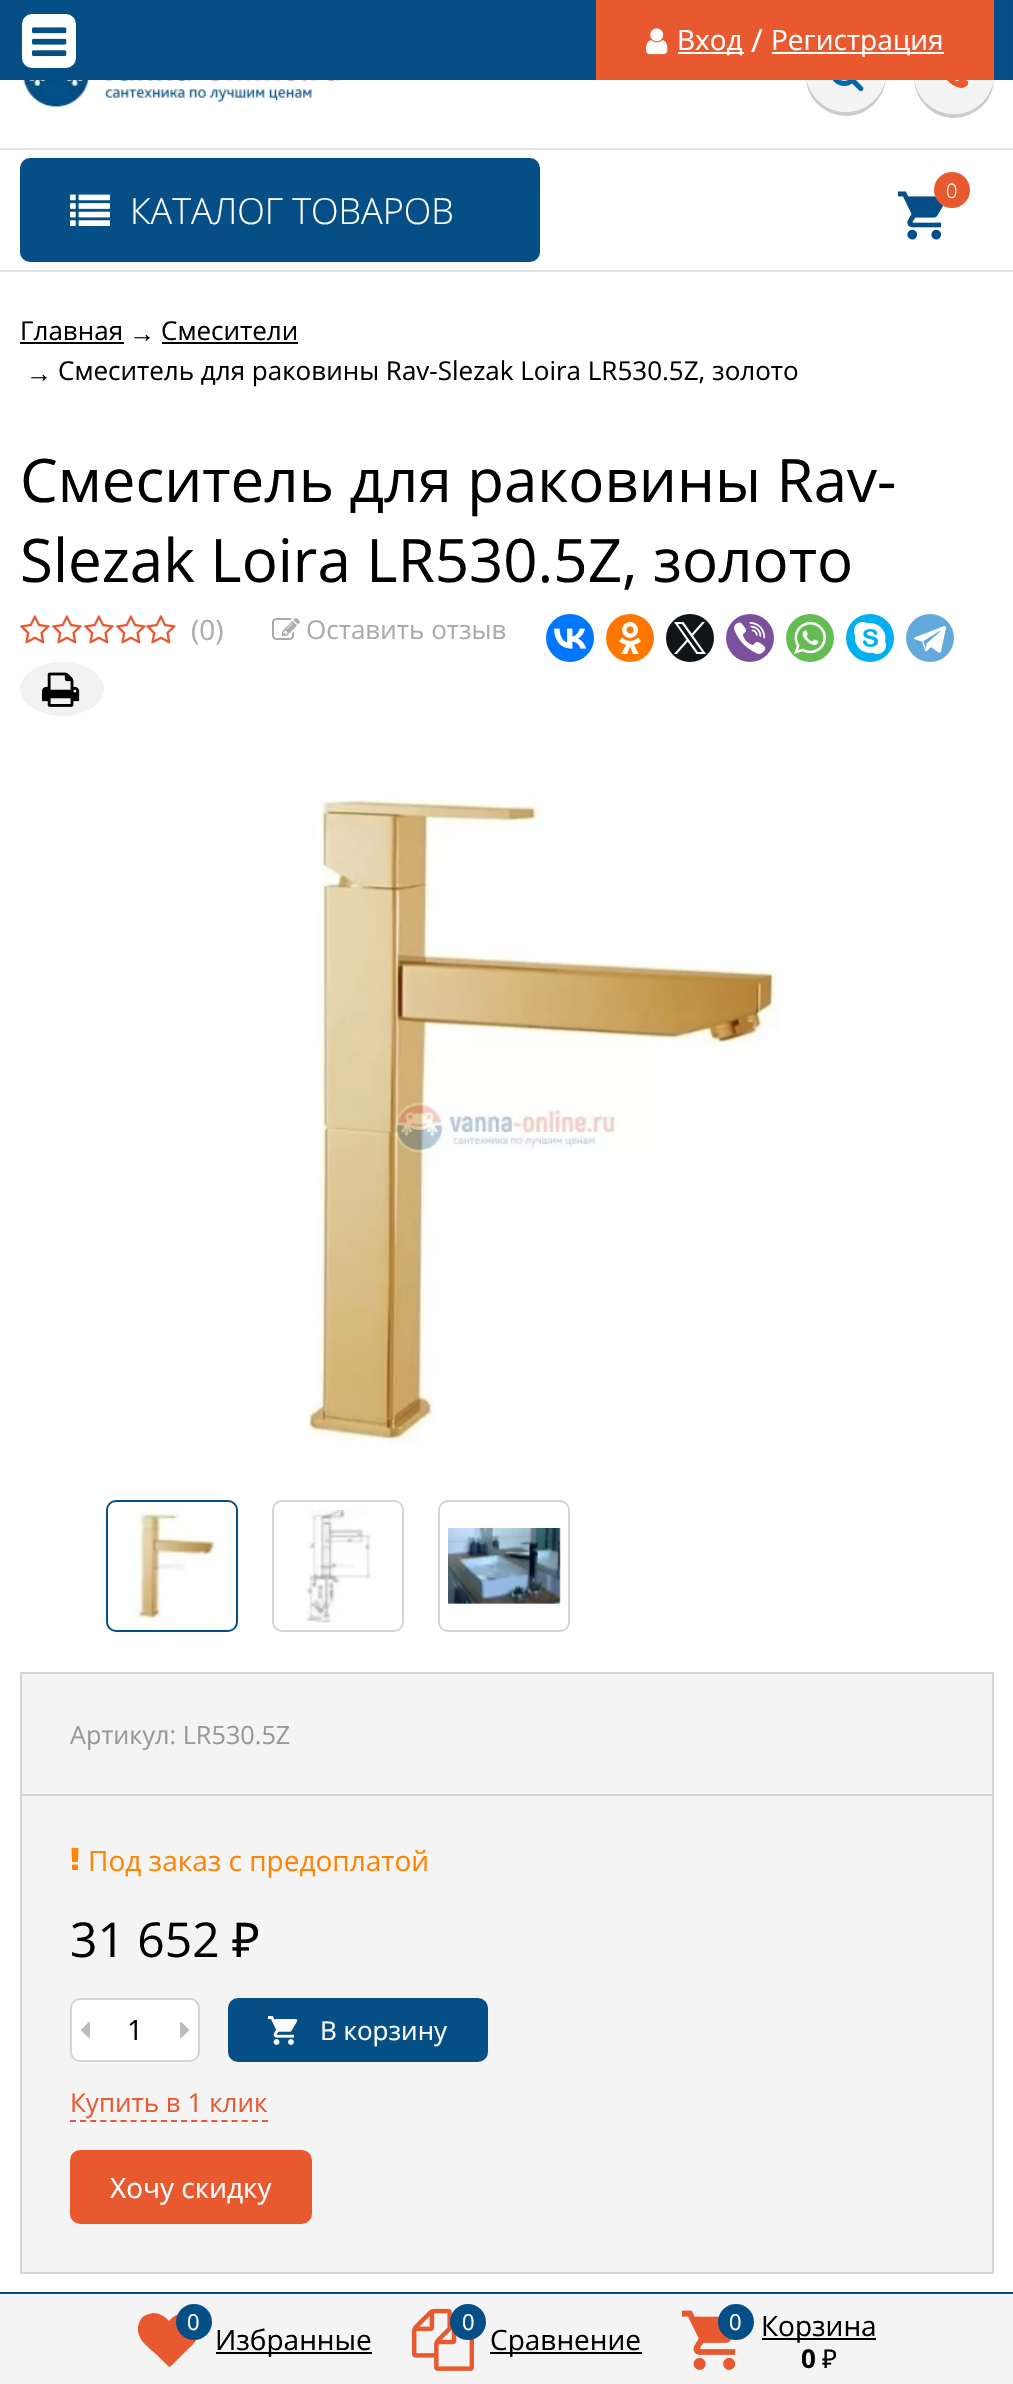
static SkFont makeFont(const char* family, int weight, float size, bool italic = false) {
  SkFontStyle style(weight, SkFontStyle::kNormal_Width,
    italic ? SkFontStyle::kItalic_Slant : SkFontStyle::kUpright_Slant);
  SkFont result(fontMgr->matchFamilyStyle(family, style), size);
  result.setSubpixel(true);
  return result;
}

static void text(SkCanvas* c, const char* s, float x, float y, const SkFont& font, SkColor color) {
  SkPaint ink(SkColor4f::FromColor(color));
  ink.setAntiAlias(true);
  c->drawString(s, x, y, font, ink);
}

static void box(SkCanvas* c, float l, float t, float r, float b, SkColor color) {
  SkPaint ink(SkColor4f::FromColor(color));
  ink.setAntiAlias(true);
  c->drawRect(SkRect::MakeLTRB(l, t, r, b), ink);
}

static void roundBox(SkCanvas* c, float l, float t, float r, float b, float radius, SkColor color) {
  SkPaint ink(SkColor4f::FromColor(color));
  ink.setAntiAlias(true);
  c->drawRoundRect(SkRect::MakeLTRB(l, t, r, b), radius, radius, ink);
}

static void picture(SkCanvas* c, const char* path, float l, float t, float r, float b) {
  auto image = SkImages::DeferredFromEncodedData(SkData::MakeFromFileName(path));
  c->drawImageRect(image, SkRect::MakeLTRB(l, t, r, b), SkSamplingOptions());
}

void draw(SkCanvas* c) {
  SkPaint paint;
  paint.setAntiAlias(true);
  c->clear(0xffffffff);
  paint.setColor(0xffcccccc);
  c->drawPath(SkPathBuilder().moveTo(806, 74).cubicTo(804, 114, 857, 132, 879, 98).cubicTo(884, 91, 886, 83, 886, 74).cubicTo(885, 95, 867, 112, 846, 112).cubicTo(825, 112, 807, 95, 806, 74).close().detach(), paint);
  paint.setColor(0xfff4f4f4);
  c->drawCircle(846, 72, 40, paint);
  paint.setColor(0xffcccccc);
  c->drawPath(SkPathBuilder().moveTo(914, 76).cubicTo(914, 85, 916, 93, 921, 100).cubicTo(943, 134, 996, 116, 994, 76).cubicTo(993, 97, 975, 114, 954, 114).cubicTo(933, 114, 915, 97, 914, 76).close().detach(), paint);
  paint.setColor(0xfff4f4f4);
  c->drawCircle(954, 74, 40, paint);
  box(c, 0, 0, 1013, 80, 0xff054f86);
  roundBox(c, 22, 14, 76, 68, 10, 0xffffffff);
  picture(c, "img_01.png", 32, 27, 67, 56);
  box(c, 596, 0, 994, 80, 0xffe95930);
  picture(c, "img_02.png", 646, 28, 668, 55);
  box(c, 678, 52, 744, 54, 0xffffffff);
  SkFont face1 = makeFont("Open Sans", 400, 28);
  text(c, "Вход", 677, 50, face1, 0xffffffff);
  SkFont face2 = makeFont("Open Sans", 400, 32);
  text(c, "/", 751, 52, face2, 0xffffffff);
  box(c, 772, 52, 944, 54, 0xffffffff);
  text(c, "Регистрация", 771, 50, face1, 0xffffffff);
  picture(c, "img_03.png", 20, 80, 340, 110);
  picture(c, "img_04.png", 832, 80, 864, 92);
  picture(c, "img_05.png", 947, 80, 969, 88);
  box(c, 0, 148, 1013, 150, 0xffe2e2e2);
  box(c, 0, 270, 1013, 272, 0xffe2e2e2);
  picture(c, "img_06.png", 898, 191, 944, 240);
  paint.setColor(0xffe95930);
  c->drawCircle(952, 190, 18, paint);
  SkFont face3 = makeFont("Open Sans", 300, 20);
  text(c, "0", 946, 198, face3, 0xffffffff);
  roundBox(c, 20, 158, 540, 262, 10, 0xff054f86);
  picture(c, "img_07.png", 70, 194, 110, 226);
  SkFont face4 = makeFont("Open Sans", 300, 36);
  text(c, "КАТАЛОГ ТОВАРОВ", 130, 224, face4, 0xffffffff);
  SkFont face5 = makeFont("Open Sans", 400, 26);
  text(c, "Главная", 20, 340, face5, 0xff000000);
  box(c, 20, 342, 124, 344, 0xff000000);
  SkFont face6 = makeFont("Liberation Sans", 400, 26);
  text(c, "→", 129, 342, face6, 0xff000000);
  text(c, "Смесители", 161, 340, face5, 0xff000000);
  box(c, 162, 342, 298, 344, 0xff000000);
  text(c, "→", 26, 382, face6, 0xff000000);
  text(c, "Смеситель для раковины Rav-Slezak Loira LR530.5Z, золото", 58, 380, face5, 0xff000000);
  SkFont face7 = makeFont("Open Sans", 400, 60);
  text(c, "Смеситель для раковины Rav-", 20, 502, face7, 0xff000000);
  text(c, "Slezak Loira LR530.5Z, золото", 20, 582, face7, 0xff000000);
  picture(c, "img_08.png", 20, 615, 50, 644);
  picture(c, "img_08.png", 52, 615, 82, 644);
  picture(c, "img_08.png", 84, 615, 114, 644);
  picture(c, "img_08.png", 116, 615, 146, 644);
  picture(c, "img_08.png", 146, 615, 176, 644);
  text(c, "(0)", 191, 640, face1, 0xffababab);
  picture(c, "img_09.png", 272, 618, 300, 640);
  text(c, "Оставить отзыв", 306, 639, face5, 0xffababab);
  paint.setColor(0xff0077ff);
  c->drawCircle(570, 638, 24, paint);
  picture(c, "img_10.png", 554, 628, 587, 649);
  paint.setColor(0xffff7700);
  c->drawCircle(630, 638, 24, paint);
  picture(c, "img_11.png", 619, 622, 641, 654);
  paint.setColor(0xff0f1419);
  c->drawCircle(690, 638, 24, paint);
  picture(c, "img_12.png", 674, 622, 706, 654);
  paint.setColor(0xff7b519d);
  c->drawCircle(750, 638, 24, paint);
  picture(c, "img_13.png", 734, 622, 766, 654);
  paint.setColor(0xff65bc54);
  c->drawCircle(810, 638, 24, paint);
  picture(c, "img_14.png", 794, 622, 826, 654);
  paint.setColor(0xff00aff0);
  c->drawCircle(870, 638, 24, paint);
  picture(c, "img_15.png", 854, 622, 886, 654);
  paint.setColor(0xff64a9dc);
  c->drawCircle(930, 638, 24, paint);
  picture(c, "img_16.png", 914, 626, 946, 653);
  paint.setColor(0xfff2f2f2);
  c->drawOval(SkRect::MakeLTRB(20, 662, 104, 716), paint);
  picture(c, "img_17.png", 42, 672, 80, 707);
  picture(c, "img_18.png", 307, 797, 780, 1445);
  paint.setStyle(SkPaint::kStroke_Style);
  paint.setStrokeWidth(2);
  paint.setColor(0xff054f86);
  c->drawRoundRect(SkRect::MakeLTRB(107, 1501, 237, 1631), 9, 9, paint);
  picture(c, "img_19.png", 123, 1510, 219, 1622);
  paint.setColor(0xffd8d4d4);
  c->drawRoundRect(SkRect::MakeLTRB(273, 1501, 403, 1631), 9, 9, paint);
  picture(c, "img_20.png", 305, 1510, 372, 1623);
  c->drawRoundRect(SkRect::MakeLTRB(439, 1501, 569, 1631), 9, 9, paint);
  picture(c, "img_21.png", 448, 1528, 561, 1604);
  paint.setStyle(SkPaint::kFill_Style);
  paint.setColor(0xfff4f4f4);
  c->drawRect(SkRect::MakeLTRB(21, 1673, 993, 2273), paint);
  paint.setStyle(SkPaint::kStroke_Style);
  paint.setColor(0xffd8d4d4);
  c->drawRect(SkRect::MakeLTRB(21, 1673, 993, 2273), paint);
  box(c, 22, 1794, 992, 1796, 0xffd8d4d4);
  SkFont face8 = makeFont("Open Sans", 400, 25.25f);
  text(c, "Артикул: LR530.5Z", 70, 1744, face8, 0xff989898);
  picture(c, "img_22.png", 71, 1848, 79, 1870);
  text(c, "Под заказ с предоплатой", 88, 1871, face1, 0xffff8400);
  SkFont face9 = makeFont("Open Sans", 400, 48);
  text(c, "31 652", 70, 1957, face9, 0xff000000);
  SkFont face10 = makeFont("Noto Sans", 400, 48);
  text(c, "₽", 232, 1957, face10, 0xff000000);
  paint.setStyle(SkPaint::kFill_Style);
  paint.setColor(0xffffffff);
  c->drawRoundRect(SkRect::MakeLTRB(71, 1999, 199, 2061), 9, 9, paint);
  paint.setStyle(SkPaint::kStroke_Style);
  paint.setColor(0xffd8d4d4);
  c->drawRoundRect(SkRect::MakeLTRB(71, 1999, 199, 2061), 9, 9, paint);
  picture(c, "img_23.png", 81, 2022, 90, 2038);
  text(c, "1", 127, 2040, face1, 0xff000000);
  picture(c, "img_24.png", 180, 2022, 189, 2038);
  roundBox(c, 228, 1998, 488, 2062, 10, 0xff054f86);
  picture(c, "img_25.png", 268, 2016, 298, 2045);
  text(c, "В корзину", 320, 2040, face5, 0xffffffff);
  text(c, "Купить в 1 клик", 70, 2112, face5, 0xffe95930);
  paint.setColor(0xffe95930);
  paint.setPathEffect(SkDashPathEffect::Make({{6, 4.1f}}, 0));
  c->drawPath(SkPathBuilder().moveTo(70, 2121).lineTo(268, 2121).detach(), paint);
  paint.setPathEffect(nullptr);
  roundBox(c, 70, 2150, 312, 2224, 10, 0xffe95930);
  text(c, "Хочу скидку", 110, 2198, face1, 0xffffffff);
  box(c, 0, 2294, 1013, 2384, 0xfff4f4f4);
  box(c, 0, 2292, 1013, 2294, 0xff054f86);
  paint.setStyle(SkPaint::kFill_Style);
  c->drawPath(SkPathBuilder().moveTo(171, 2366).cubicTo(170, 2367, 169, 2367, 168, 2366).lineTo(157, 2355).cubicTo(148, 2347, 132, 2336, 140, 2321).cubicTo(142, 2316, 147, 2314, 153, 2313).cubicTo(159, 2313, 165, 2316, 169, 2321).cubicTo(175, 2314, 185, 2310, 193, 2316).cubicTo(197, 2318, 199, 2322, 200, 2326).cubicTo(200, 2330, 200, 2334, 198, 2337).cubicTo(195, 2343, 190, 2347, 185, 2352).close().detach(), paint);
  paint.setColor(0xff054f86);
  c->drawCircle(194, 2322, 18, paint);
  SkFont face11 = makeFont("Open Sans", 400, 22);
  text(c, "0", 187, 2330, face11, 0xffffffff);
  box(c, 216, 2352, 372, 2354, 0xff000000);
  text(c, "Избранные", 215, 2350, face1, 0xff000000);
  picture(c, "img_26.png", 412, 2308, 474, 2371);
  c->drawCircle(468, 2322, 18, paint);
  text(c, "0", 462, 2330, face11, 0xffffffff);
  box(c, 490, 2352, 642, 2354, 0xff000000);
  text(c, "Сравнение", 490, 2350, face1, 0xff000000);
  picture(c, "img_27.png", 682, 2310, 736, 2370);
  c->drawCircle(736, 2322, 18, paint);
  text(c, "0", 729, 2330, face11, 0xffffffff);
  box(c, 762, 2338, 876, 2340, 0xff000000);
  text(c, "Корзина", 761, 2336, face1, 0xff000000);
  SkFont face12 = makeFont("Open Sans", 700, 26);
  text(c, "0", 801, 2368, face12, 0xff000000);
  SkFont face13 = makeFont("Noto Sans", 400, 26);
  text(c, "₽", 822, 2368, face13, 0xff000000);
}
